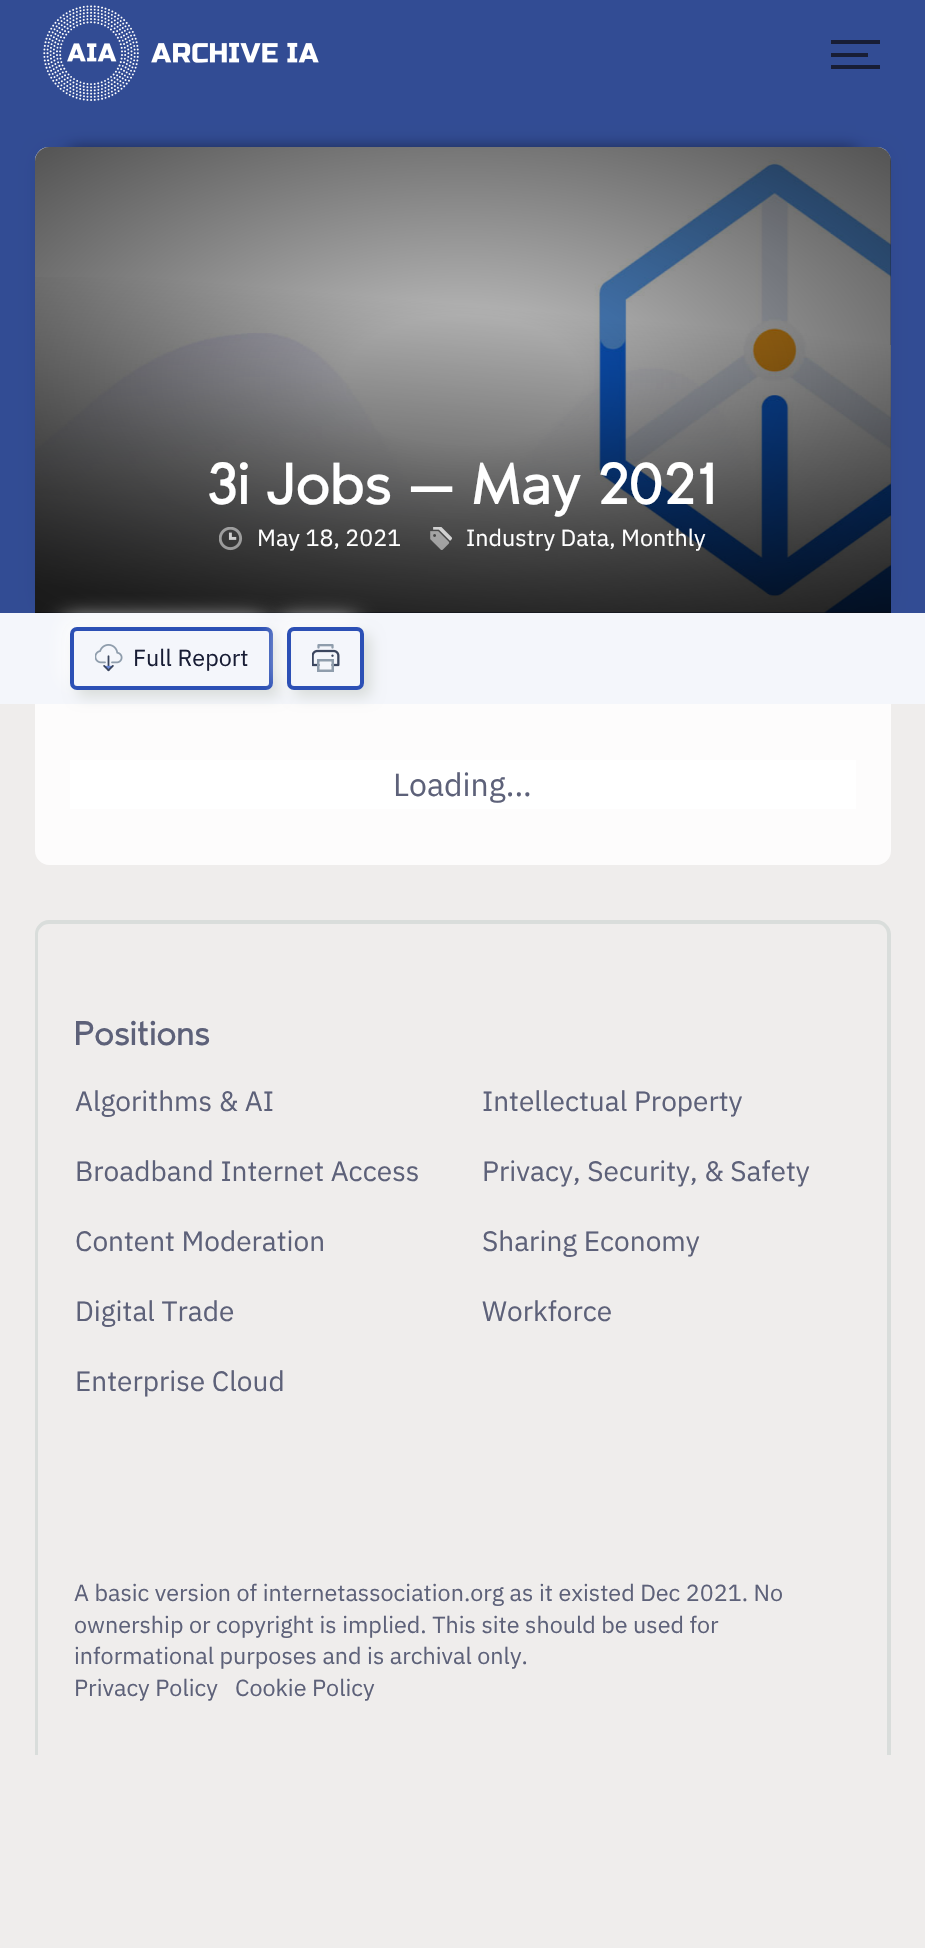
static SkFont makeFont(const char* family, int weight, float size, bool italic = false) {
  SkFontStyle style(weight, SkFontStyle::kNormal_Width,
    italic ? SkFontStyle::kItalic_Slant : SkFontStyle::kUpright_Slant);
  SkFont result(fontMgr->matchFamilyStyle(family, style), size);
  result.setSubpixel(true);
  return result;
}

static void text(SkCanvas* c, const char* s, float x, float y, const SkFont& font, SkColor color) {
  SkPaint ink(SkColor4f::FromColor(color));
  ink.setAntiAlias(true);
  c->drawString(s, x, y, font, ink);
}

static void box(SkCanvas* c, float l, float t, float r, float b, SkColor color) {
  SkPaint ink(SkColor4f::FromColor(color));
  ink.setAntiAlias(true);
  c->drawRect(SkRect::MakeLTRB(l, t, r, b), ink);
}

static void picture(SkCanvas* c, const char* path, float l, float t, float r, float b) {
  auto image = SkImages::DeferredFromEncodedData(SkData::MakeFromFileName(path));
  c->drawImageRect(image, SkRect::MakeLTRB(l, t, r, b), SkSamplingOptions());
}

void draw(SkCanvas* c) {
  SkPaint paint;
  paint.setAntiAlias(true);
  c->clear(0xffefedec);
  box(c, 0, 0, 925, 613, 0xff324c94);
  picture(c, "img_01.png", 43, 5, 319, 101);
  box(c, 831, 53, 868, 57, 0xff181d35);
  box(c, 831, 40, 880, 44, 0xff181d35);
  box(c, 831, 65, 880, 69, 0xff181d35);
  paint.setColor(0x80000000);
  paint.setMaskFilter(SkMaskFilter::MakeBlur(kNormal_SkBlurStyle, 8));
  c->drawRect(SkRect::MakeLTRB(70, 149, 856, 544), paint);
  paint.setMaskFilter(nullptr);
  paint.setColor(0x33000000);
  paint.setMaskFilter(SkMaskFilter::MakeBlur(kNormal_SkBlurStyle, 11.5f));
  c->drawRoundRect(SkRect::MakeLTRB(46, 158, 880, 602), 4, 4, paint);
  paint.setMaskFilter(nullptr);
  paint.setColor(0xff2f4791);
  c->drawPath(SkPathBuilder().moveTo(49, 147).lineTo(877, 147).cubicTo(884.5f, 147, 891, 153.5f, 891, 161).lineTo(891, 613).lineTo(35, 613).lineTo(35, 161).cubicTo(35, 153.5f, 41.5f, 147, 49, 147).close().detach(), paint);
  picture(c, "img_02.png", 35, 147, 891, 613);
  {
    const SkColor colors[] = {0x4d000000, 0xe6000000};
    const float stops[] = {0.13f, 1};
    SkMatrix m = SkMatrix::Translate(463, 380).preScale(908, 494);
    paint.setShader(SkGradientShader::MakeRadial({0, 0}, 1, colors, stops, 2, SkTileMode::kClamp, 0, &m));
    paint.setAlpha(255);
  }
  c->drawPath(SkPathBuilder().moveTo(49, 147).lineTo(877, 147).cubicTo(884.5f, 147, 891, 153.5f, 891, 161).lineTo(891, 613).lineTo(35, 613).lineTo(35, 161).cubicTo(35, 153.5f, 41.5f, 147, 49, 147).close().detach(), paint);
  {
    const SkColor colors[] = {0xb3000000, 0x00000000};
    const float stops[] = {0.05f, 0.64f};
    const SkPoint ends[] = {{439, 648}, {486, 112}};
    paint.setShader(SkGradientShader::MakeLinear(ends, colors, stops, 2, SkTileMode::kClamp));
    paint.setAlpha(255);
  }
  c->drawRect(SkRect::MakeLTRB(35, 277, 891, 613), paint);
  SkFont face1 = makeFont("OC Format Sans", 500, 58);
  text(c, "3i Jobs — May 2021", 207, 504, face1, 0xffffffff);
  picture(c, "img_03.png", 219, 527, 243, 551);
  SkFont face2 = makeFont("IBM Plex Sans", 400, 23.3f);
  text(c, "May 18, 2021", 257, 546, face2, 0xffffffff);
  picture(c, "img_04.png", 430, 527, 452, 550);
  text(c, "Industry Data, Monthly", 466, 546, face2, 0xffffffff);
  box(c, 0, 613, 925, 704, 0xfff4f6fb);
  paint.setShader(nullptr);
  paint.setColor(0xfffdfcfc);
  c->drawPath(SkPathBuilder().moveTo(35, 704).lineTo(891, 704).lineTo(891, 851).cubicTo(891, 858.5f, 884.5f, 865, 877, 865).lineTo(49, 865).cubicTo(41.5f, 865, 35, 858.5f, 35, 851).close().detach(), paint);
  c->save();
  c->clipPath(SkPathBuilder(SkPathFillType::kEvenOdd).moveTo(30, 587).lineTo(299, 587).lineTo(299, 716).lineTo(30, 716).close().moveTo(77, 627).lineTo(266, 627).cubicTo(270, 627, 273, 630, 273, 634).lineTo(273, 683).cubicTo(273, 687, 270, 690, 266, 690).lineTo(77, 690).cubicTo(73, 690, 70, 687, 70, 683).lineTo(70, 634).cubicTo(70, 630, 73, 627, 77, 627).close().detach(), true);
  paint.setColor(0xffffffff);
  paint.setMaskFilter(SkMaskFilter::MakeBlur(kNormal_SkBlurStyle, 10.5f));
  c->drawRoundRect(SkRect::MakeLTRB(63, 620, 266, 683), 7, 7, paint);
  paint.setMaskFilter(nullptr);
  c->restore();
  c->save();
  c->clipPath(SkPathBuilder(SkPathFillType::kEvenOdd).moveTo(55, 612).lineTo(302, 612).lineTo(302, 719).lineTo(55, 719).close().moveTo(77, 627).lineTo(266, 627).cubicTo(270, 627, 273, 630, 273, 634).lineTo(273, 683).cubicTo(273, 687, 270, 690, 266, 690).lineTo(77, 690).cubicTo(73, 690, 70, 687, 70, 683).lineTo(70, 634).cubicTo(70, 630, 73, 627, 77, 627).close().detach(), true);
  paint.setColor(0xffd9dddb);
  paint.setMaskFilter(SkMaskFilter::MakeBlur(kNormal_SkBlurStyle, 7));
  c->drawRoundRect(SkRect::MakeLTRB(77, 634, 280, 697), 7, 7, paint);
  paint.setMaskFilter(nullptr);
  c->restore();
  paint.setStyle(SkPaint::kStroke_Style);
  paint.setStrokeWidth(4);
  paint.setColor(0xff2c50b5);
  c->drawRoundRect(SkRect::MakeLTRB(72, 629, 271, 688), 5, 5, paint);
  picture(c, "img_05.png", 95, 644, 123, 672);
  text(c, "Full Report", 133, 666, face2, 0xff181d35);
  c->save();
  c->clipPath(SkPathBuilder(SkPathFillType::kEvenOdd).moveTo(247, 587).lineTo(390, 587).lineTo(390, 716).lineTo(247, 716).close().moveTo(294, 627).lineTo(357, 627).cubicTo(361, 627, 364, 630, 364, 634).lineTo(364, 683).cubicTo(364, 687, 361, 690, 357, 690).lineTo(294, 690).cubicTo(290, 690, 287, 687, 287, 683).lineTo(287, 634).cubicTo(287, 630, 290, 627, 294, 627).close().detach(), true);
  paint.setStyle(SkPaint::kFill_Style);
  paint.setColor(0xffffffff);
  paint.setMaskFilter(SkMaskFilter::MakeBlur(kNormal_SkBlurStyle, 10.5f));
  c->drawRoundRect(SkRect::MakeLTRB(280, 620, 357, 683), 7, 7, paint);
  paint.setMaskFilter(nullptr);
  c->restore();
  c->save();
  c->clipPath(SkPathBuilder(SkPathFillType::kEvenOdd).moveTo(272, 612).lineTo(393, 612).lineTo(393, 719).lineTo(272, 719).close().moveTo(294, 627).lineTo(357, 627).cubicTo(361, 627, 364, 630, 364, 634).lineTo(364, 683).cubicTo(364, 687, 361, 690, 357, 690).lineTo(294, 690).cubicTo(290, 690, 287, 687, 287, 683).lineTo(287, 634).cubicTo(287, 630, 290, 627, 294, 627).close().detach(), true);
  paint.setColor(0xffd9dddb);
  paint.setMaskFilter(SkMaskFilter::MakeBlur(kNormal_SkBlurStyle, 7));
  c->drawRoundRect(SkRect::MakeLTRB(294, 634, 371, 697), 7, 7, paint);
  paint.setMaskFilter(nullptr);
  c->restore();
  paint.setStyle(SkPaint::kStroke_Style);
  paint.setColor(0xff2c50b5);
  c->drawRoundRect(SkRect::MakeLTRB(289, 629, 362, 688), 5, 5, paint);
  picture(c, "img_06.png", 312, 644, 340, 672);
  box(c, 70, 760, 856, 809, 0xffffffff);
  SkFont face3 = makeFont("IBM Plex Sans", 400, 32);
  text(c, "Loading...", 393, 796, face3, 0xff5d6179);
  paint.setStyle(SkPaint::kFill_Style);
  paint.setColor(0xffd9dddb);
  c->drawPath(SkPathBuilder(SkPathFillType::kEvenOdd).moveTo(49, 920).lineTo(877, 920).cubicTo(884, 920, 891, 927, 891, 934).lineTo(891, 1755).lineTo(35, 1755).lineTo(35, 934).cubicTo(35, 927, 41, 920, 49, 920).close().moveTo(49, 924).lineTo(877, 924).cubicTo(883, 924, 887, 929, 887, 934).lineTo(887, 1755).lineTo(38, 1755).lineTo(38, 934).cubicTo(38, 929, 43, 924, 49, 924).close().detach(), paint);
  SkFont face4 = makeFont("OC Format Sans", 500, 33.5f);
  text(c, "Positions", 74, 1045, face4, 0xff5d6179);
  SkFont face5 = makeFont("IBM Plex Sans", 400, 28);
  text(c, "Algorithms & AI", 75, 1111, face5, 0xff5d6179);
  text(c, "Intellectual Property", 482, 1111, face5, 0xff5d6179);
  text(c, "Broadband Internet Access", 75, 1181, face5, 0xff5d6179);
  text(c, "Privacy, Security, & Safety", 482, 1181, face5, 0xff5d6179);
  text(c, "Content Moderation", 75, 1251, face5, 0xff5d6179);
  text(c, "Sharing Economy", 482, 1251, face5, 0xff5d6179);
  text(c, "Digital Trade", 75, 1321, face5, 0xff5d6179);
  text(c, "Workforce", 482, 1321, face5, 0xff5d6179);
  text(c, "Enterprise Cloud", 75, 1391, face5, 0xff5d6179);
  text(c, "A basic version of internetassociation.org as it existed Dec 2021. No", 74, 1601, face2, 0xff5d6179);
  text(c, "ownership or copyright is implied. This site should be used for", 74, 1633, face2, 0xff5d6179);
  text(c, "informational purposes and is archival only.", 74, 1664, face2, 0xff5d6179);
  text(c, "Privacy Policy", 74, 1696, face2, 0xff5d6179);
  text(c, "Cookie Policy", 235, 1696, face2, 0xff5d6179);
}
